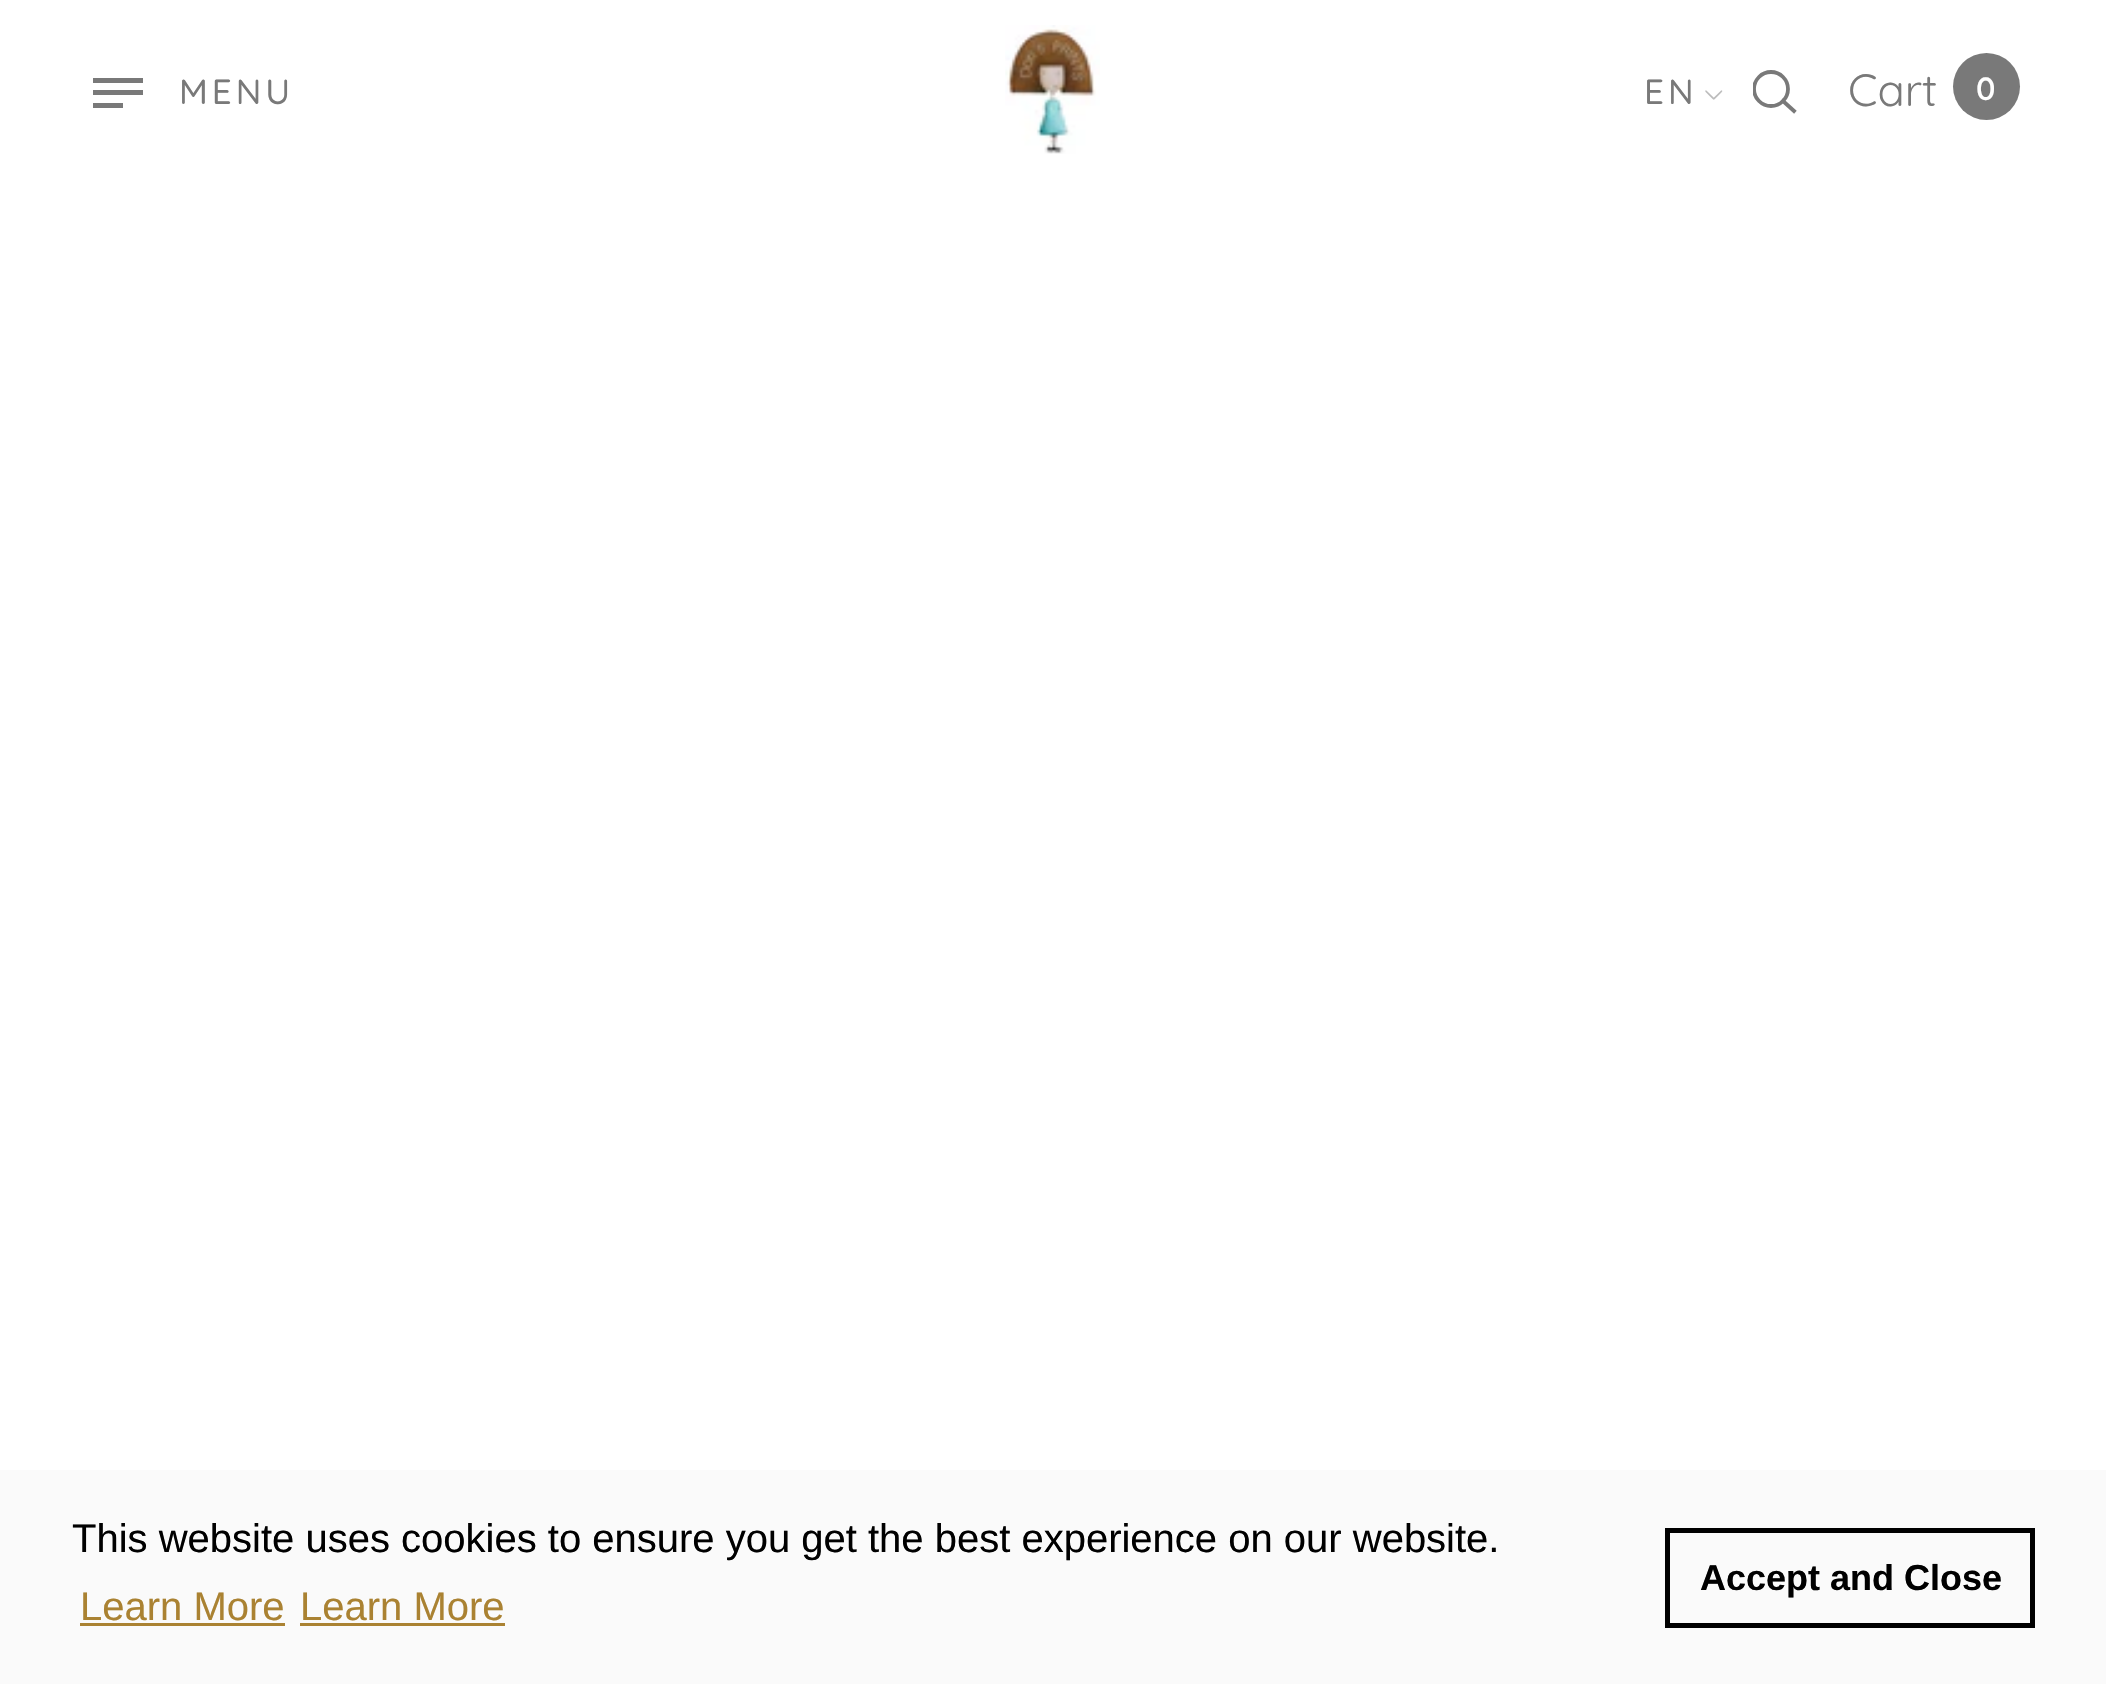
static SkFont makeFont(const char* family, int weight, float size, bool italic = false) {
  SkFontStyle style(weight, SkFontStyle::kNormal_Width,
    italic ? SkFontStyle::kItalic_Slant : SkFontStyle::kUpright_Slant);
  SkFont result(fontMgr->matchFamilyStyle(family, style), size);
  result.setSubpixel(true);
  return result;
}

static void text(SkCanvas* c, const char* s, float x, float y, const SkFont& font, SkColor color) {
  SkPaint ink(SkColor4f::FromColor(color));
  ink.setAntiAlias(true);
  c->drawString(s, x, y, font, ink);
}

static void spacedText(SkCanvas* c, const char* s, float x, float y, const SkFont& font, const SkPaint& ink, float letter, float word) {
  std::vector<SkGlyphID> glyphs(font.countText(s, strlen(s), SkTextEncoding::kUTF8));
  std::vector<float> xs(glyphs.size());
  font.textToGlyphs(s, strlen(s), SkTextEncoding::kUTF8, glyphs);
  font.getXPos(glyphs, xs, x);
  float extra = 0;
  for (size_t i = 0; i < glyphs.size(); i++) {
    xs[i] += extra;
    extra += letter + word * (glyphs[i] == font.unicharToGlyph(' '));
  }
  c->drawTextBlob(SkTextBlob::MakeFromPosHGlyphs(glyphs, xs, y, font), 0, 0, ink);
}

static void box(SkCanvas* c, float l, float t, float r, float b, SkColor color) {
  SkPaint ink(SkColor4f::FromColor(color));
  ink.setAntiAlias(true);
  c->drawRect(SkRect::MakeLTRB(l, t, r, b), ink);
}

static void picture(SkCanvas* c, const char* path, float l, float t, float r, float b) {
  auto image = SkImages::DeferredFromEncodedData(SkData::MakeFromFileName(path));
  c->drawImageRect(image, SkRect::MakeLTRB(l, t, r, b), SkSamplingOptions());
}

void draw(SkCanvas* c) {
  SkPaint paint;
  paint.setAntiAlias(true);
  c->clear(0xffffffff);
  box(c, 93, 78, 143, 83, 0xff797979);
  box(c, 93, 90, 143, 95, 0xff797979);
  box(c, 93, 103, 123, 108, 0xff797979);
  SkFont face1 = makeFont("Quicksand", 500, 35);
  paint.setColor(0xff797979);
  spacedText(c, "MENU", 179, 104, face1, paint, 4, 0);
  picture(c, "img_01.png", 1005, 25, 1100, 154);
  spacedText(c, "EN", 1644, 104, face1, paint, 4, 0);
  picture(c, "img_02.png", 1705, 90, 1723, 100);
  paint.setStyle(SkPaint::kStroke_Style);
  paint.setStrokeWidth(3.8f);
  paint.setStrokeCap(SkPaint::kSquare_Cap);
  c->drawPath(SkPathBuilder().moveTo(1794, 111).lineTo(1783, 101).detach(), paint);
  c->save();
  c->clipRect(SkRect::MakeLTRB(1753, 70, 1798, 115));
  paint.setStrokeCap(SkPaint::kButt_Cap);
  c->drawCircle(1771, 89, 17, paint);
  c->restore();
  SkFont face2 = makeFont("Quicksand", 400, 45);
  text(c, "Cart", 1848, 106, face2, 0xff797979);
  paint.setStyle(SkPaint::kFill_Style);
  c->drawCircle(1986.5f, 86.5f, 33.5f, paint);
  SkFont face3 = makeFont("Quicksand", 600, 32);
  text(c, "0", 1976, 100, face3, 0xffffffff);
  box(c, 0, 1470, 2106, 1684, 0xfffafafa);
  SkFont face4 = makeFont("Liberation Sans", 400, 40);
  text(c, "This website uses cookies to ensure you get the best experience on our website.", 72, 1552, face4, 0xff000000);
  text(c, "Learn More", 80, 1620, face4, 0xffaa8232);
  box(c, 80, 1623, 285, 1626, 0xffaa8232);
  text(c, "Learn More", 300, 1620, face4, 0xffaa8232);
  box(c, 300, 1623, 505, 1626, 0xffaa8232);
  paint.setStyle(SkPaint::kStroke_Style);
  paint.setStrokeWidth(5);
  paint.setColor(0xff000000);
  c->drawRect(SkRect::MakeLTRB(1667.5f, 1530.5f, 2032.5f, 1625.5f), paint);
  SkFont face5 = makeFont("Liberation Sans", 700, 36);
  text(c, "Accept and Close", 1700, 1590, face5, 0xff000000);
}
